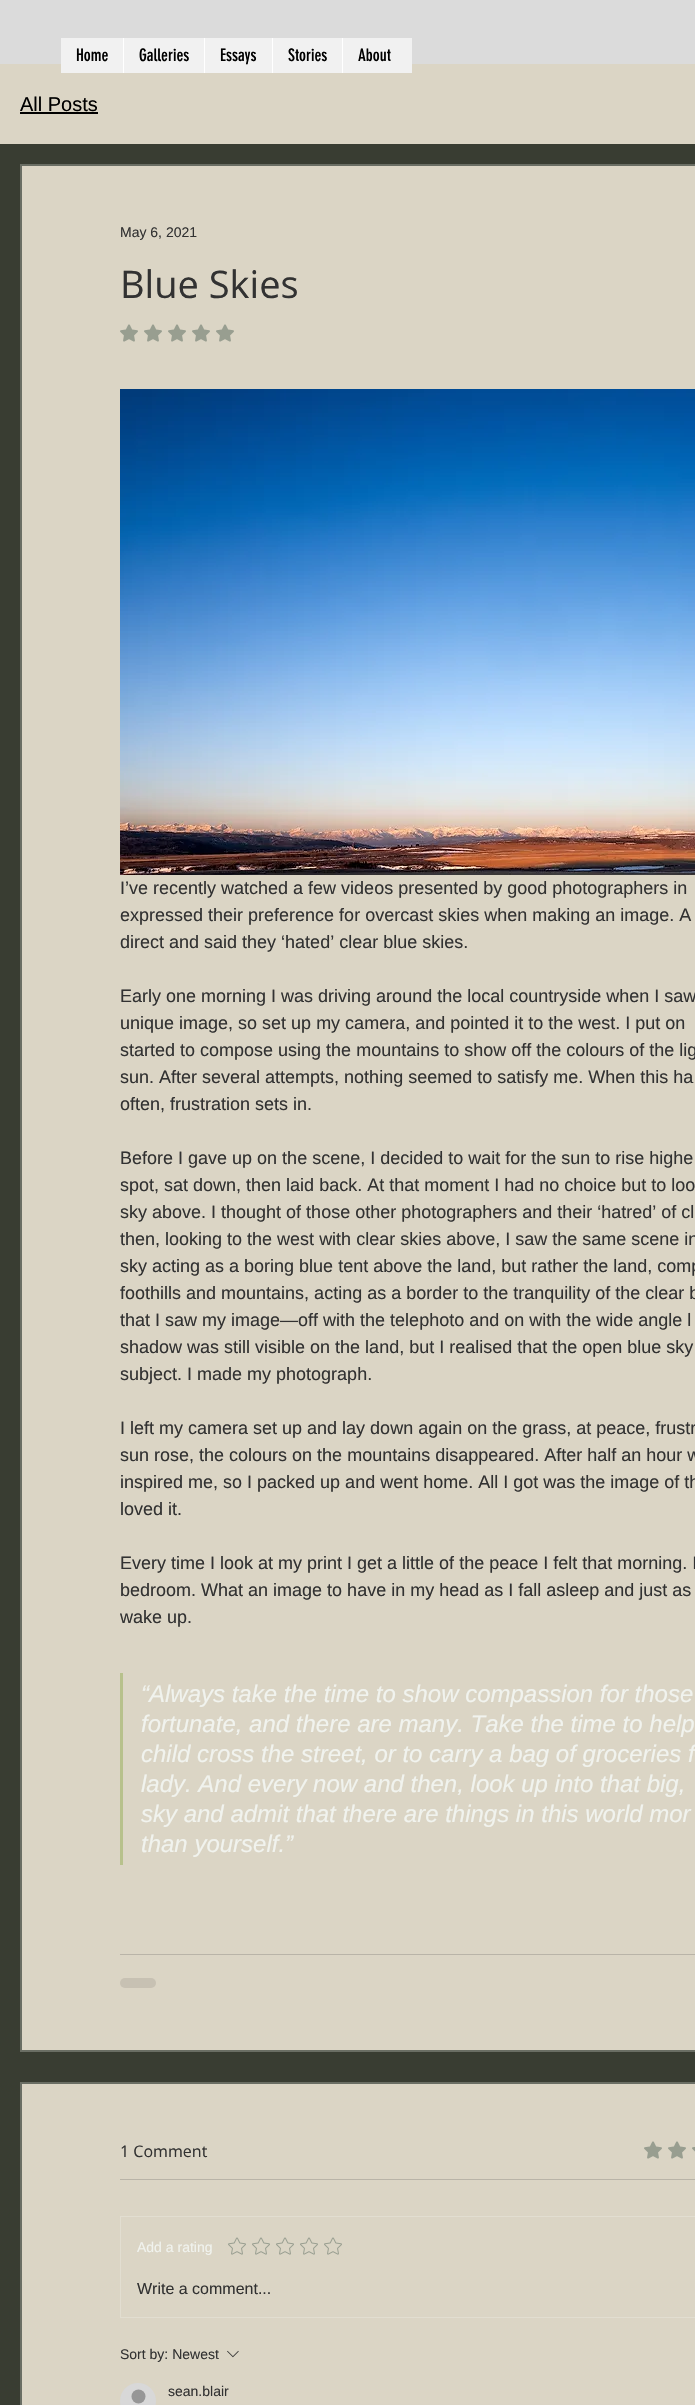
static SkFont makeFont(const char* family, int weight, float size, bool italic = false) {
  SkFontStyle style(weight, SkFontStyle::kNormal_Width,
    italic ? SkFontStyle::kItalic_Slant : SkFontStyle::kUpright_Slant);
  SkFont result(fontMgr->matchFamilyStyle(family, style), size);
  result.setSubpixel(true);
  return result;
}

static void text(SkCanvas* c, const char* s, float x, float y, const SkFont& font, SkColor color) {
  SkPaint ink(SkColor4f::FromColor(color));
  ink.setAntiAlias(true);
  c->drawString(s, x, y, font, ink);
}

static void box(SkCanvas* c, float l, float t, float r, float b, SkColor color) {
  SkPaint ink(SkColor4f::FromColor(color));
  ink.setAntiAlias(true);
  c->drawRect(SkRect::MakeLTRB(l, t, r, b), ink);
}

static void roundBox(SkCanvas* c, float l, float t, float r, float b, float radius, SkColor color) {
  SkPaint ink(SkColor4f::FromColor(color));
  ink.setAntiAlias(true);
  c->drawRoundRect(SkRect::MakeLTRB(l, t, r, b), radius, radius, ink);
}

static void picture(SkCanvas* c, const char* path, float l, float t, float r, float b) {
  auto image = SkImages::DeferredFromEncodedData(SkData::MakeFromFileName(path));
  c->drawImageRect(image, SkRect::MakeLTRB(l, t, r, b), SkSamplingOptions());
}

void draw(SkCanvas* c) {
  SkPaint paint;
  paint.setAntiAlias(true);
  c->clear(0xffdbdbdb);
  box(c, 0, 64, 695, 144, 0xffdbd5c5);
  box(c, 61, 38, 412, 73, 0xfff1f1f1);
  SkFont face1 = makeFont("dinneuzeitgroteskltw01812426", 400, 17);
  text(c, "Home", 76, 61, face1, 0xff000000);
  box(c, 123, 38, 124, 73, 0xffffffff);
  text(c, "Galleries", 139, 61, face1, 0xff000000);
  box(c, 204, 38, 205, 73, 0xffffffff);
  text(c, "Essays", 220, 61, face1, 0xff000000);
  box(c, 272, 38, 273, 73, 0xffffffff);
  text(c, "Stories", 288, 61, face1, 0xff000000);
  box(c, 342, 38, 343, 73, 0xffffffff);
  text(c, "About", 358, 61, face1, 0xff000000);
  box(c, 0, 144, 695, 2405, 0xff393d32);
  SkFont face2 = makeFont("Liberation Sans", 400, 20);
  text(c, "All Posts", 20, 111, face2, 0xff000000);
  box(c, 20, 112, 98, 114, 0xff000000);
  paint.setColor(0xffdbd5c5);
  c->drawRect(SkRect::MakeLTRB(21, 165, 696, 2051), paint);
  paint.setStyle(SkPaint::kStroke_Style);
  paint.setStrokeWidth(2);
  paint.setColor(0xff6a6e64);
  c->drawRect(SkRect::MakeLTRB(21, 165, 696, 2051), paint);
  SkFont face3 = makeFont("Liberation Sans", 400, 14);
  text(c, "May 6, 2021", 120, 237, face3, 0xff323232);
  SkFont face4 = makeFont("Open Sans", 400, 38);
  text(c, "Blue Skies", 120, 298, face4, 0xff323232);
  picture(c, "img_01.png", 120, 324, 138, 342);
  picture(c, "img_01.png", 144, 324, 162, 342);
  picture(c, "img_01.png", 168, 324, 186, 342);
  picture(c, "img_01.png", 192, 324, 210, 342);
  picture(c, "img_01.png", 216, 324, 234, 342);
  picture(c, "img_02.png", 120, 389, 695, 875);
  SkFont face5 = makeFont("Liberation Sans", 400, 18);
  text(c, "I’ve recently watched a few videos presented by good photographers in", 120, 894, face5, 0xff323232);
  text(c, "expressed their preference for overcast skies when making an image. A", 120, 921, face5, 0xff323232);
  text(c, "direct and said they ‘hated’ clear blue skies.", 120, 948, face5, 0xff323232);
  text(c, "Early one morning I was driving around the local countryside when I saw", 120, 1002, face5, 0xff323232);
  text(c, "unique image, so set up my camera, and pointed it to the west. I put on", 120, 1029, face5, 0xff323232);
  text(c, "started to compose using the mountains to show off the colours of the lig", 120, 1056, face5, 0xff323232);
  text(c, "sun. After several attempts, nothing seemed to satisfy me. When this ha", 120, 1083, face5, 0xff323232);
  text(c, "often, frustration sets in.", 120, 1110, face5, 0xff323232);
  text(c, "Before I gave up on the scene, I decided to wait for the sun to rise highe", 120, 1164, face5, 0xff323232);
  text(c, "spot, sat down, then laid back. At that moment I had no choice but to loo", 120, 1191, face5, 0xff323232);
  text(c, "sky above. I thought of those other photographers and their ‘hatred’ of cl", 120, 1218, face5, 0xff323232);
  text(c, "then, looking to the west with clear skies above, I saw the same scene in", 120, 1245, face5, 0xff323232);
  text(c, "sky acting as a boring blue tent above the land, but rather the land, comp", 120, 1272, face5, 0xff323232);
  text(c, "foothills and mountains, acting as a border to the tranquility of the clear b", 120, 1299, face5, 0xff323232);
  text(c, "that I saw my image—off with the telephoto and on with the wide angle l", 120, 1326, face5, 0xff323232);
  text(c, "shadow was still visible on the land, but I realised that the open blue sky", 120, 1353, face5, 0xff323232);
  text(c, "subject. I made my photograph.", 120, 1380, face5, 0xff323232);
  text(c, "I left my camera set up and lay down again on the grass, at peace, frustr", 120, 1434, face5, 0xff323232);
  text(c, "sun rose, the colours on the mountains disappeared. After half an hour w", 120, 1461, face5, 0xff323232);
  text(c, "inspired me, so I packed up and went home. All I got was the image of th", 120, 1488, face5, 0xff323232);
  text(c, "loved it.", 120, 1515, face5, 0xff323232);
  text(c, "Every time I look at my print I get a little of the peace I felt that morning. I", 120, 1569, face5, 0xff323232);
  text(c, "bedroom. What an image to have in my head as I fall asleep and just as", 120, 1596, face5, 0xff323232);
  text(c, "wake up.", 120, 1623, face5, 0xff323232);
  box(c, 120, 1673, 123, 1865, 0xffb7c18c);
  SkFont face6 = makeFont("Liberation Sans", 400, 24, true);
  text(c, "“Always take the time to show compassion for those", 141, 1702, face6, 0xfff1f3ee);
  text(c, "fortunate, and there are many. Take the time to help", 141, 1732, face6, 0xfff1f3ee);
  text(c, "child cross the street, or to carry a bag of groceries f", 141, 1762, face6, 0xfff1f3ee);
  text(c, "lady. And every now and then, look up into that big,", 141, 1792, face6, 0xfff1f3ee);
  text(c, "sky and admit that there are things in this world mor", 141, 1822, face6, 0xfff1f3ee);
  text(c, "than yourself.”", 141, 1852, face6, 0xfff1f3ee);
  box(c, 120, 1954, 695, 1955, 0xffb9b4a8);
  roundBox(c, 120, 1978, 156, 1988, 5, 0xffc7c1b3);
  paint.setStyle(SkPaint::kFill_Style);
  paint.setColor(0xffdbd5c5);
  c->drawRect(SkRect::MakeLTRB(21, 2083, 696, 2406), paint);
  paint.setStyle(SkPaint::kStroke_Style);
  paint.setColor(0xff6a6e64);
  c->drawRect(SkRect::MakeLTRB(21, 2083, 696, 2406), paint);
  SkFont face7 = makeFont("Open Sans", 400, 16);
  text(c, "1 Comment", 120, 2157, face7, 0xff323232);
  picture(c, "img_01.png", 644, 2141, 662, 2159);
  picture(c, "img_01.png", 668, 2141, 686, 2159);
  picture(c, "img_03.png", 692, 2147, 695, 2152);
  box(c, 120, 2179, 695, 2180, 0xffb9b4a8);
  paint.setStrokeWidth(1);
  paint.setColor(0xffe2ded1);
  c->drawRect(SkRect::MakeLTRB(120.5f, 2216.5f, 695.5f, 2317.5f), paint);
  text(c, "Add a rating", 137, 2252, face3, 0xfff1f3ee);
  picture(c, "img_04.png", 228, 2237, 246, 2255);
  picture(c, "img_04.png", 252, 2237, 270, 2255);
  picture(c, "img_04.png", 276, 2237, 294, 2255);
  picture(c, "img_04.png", 300, 2237, 318, 2255);
  picture(c, "img_04.png", 324, 2237, 342, 2255);
  SkFont face8 = makeFont("Liberation Sans", 400, 16);
  text(c, "Write a comment...", 137, 2294, face8, 0xff323232);
  text(c, "Sort by: Newest", 120, 2359, face3, 0xff323232);
  picture(c, "img_05.png", 227, 2350, 239, 2358);
  paint.setStyle(SkPaint::kFill_Style);
  paint.setColor(0xffd8d8d8);
  c->drawCircle(138, 2401, 18, paint);
  paint.setColor(0xff969696);
  c->drawCircle(138.5f, 2396.5f, 7, paint);
  text(c, "sean.blair", 168, 2396, face3, 0xff323232);
}
